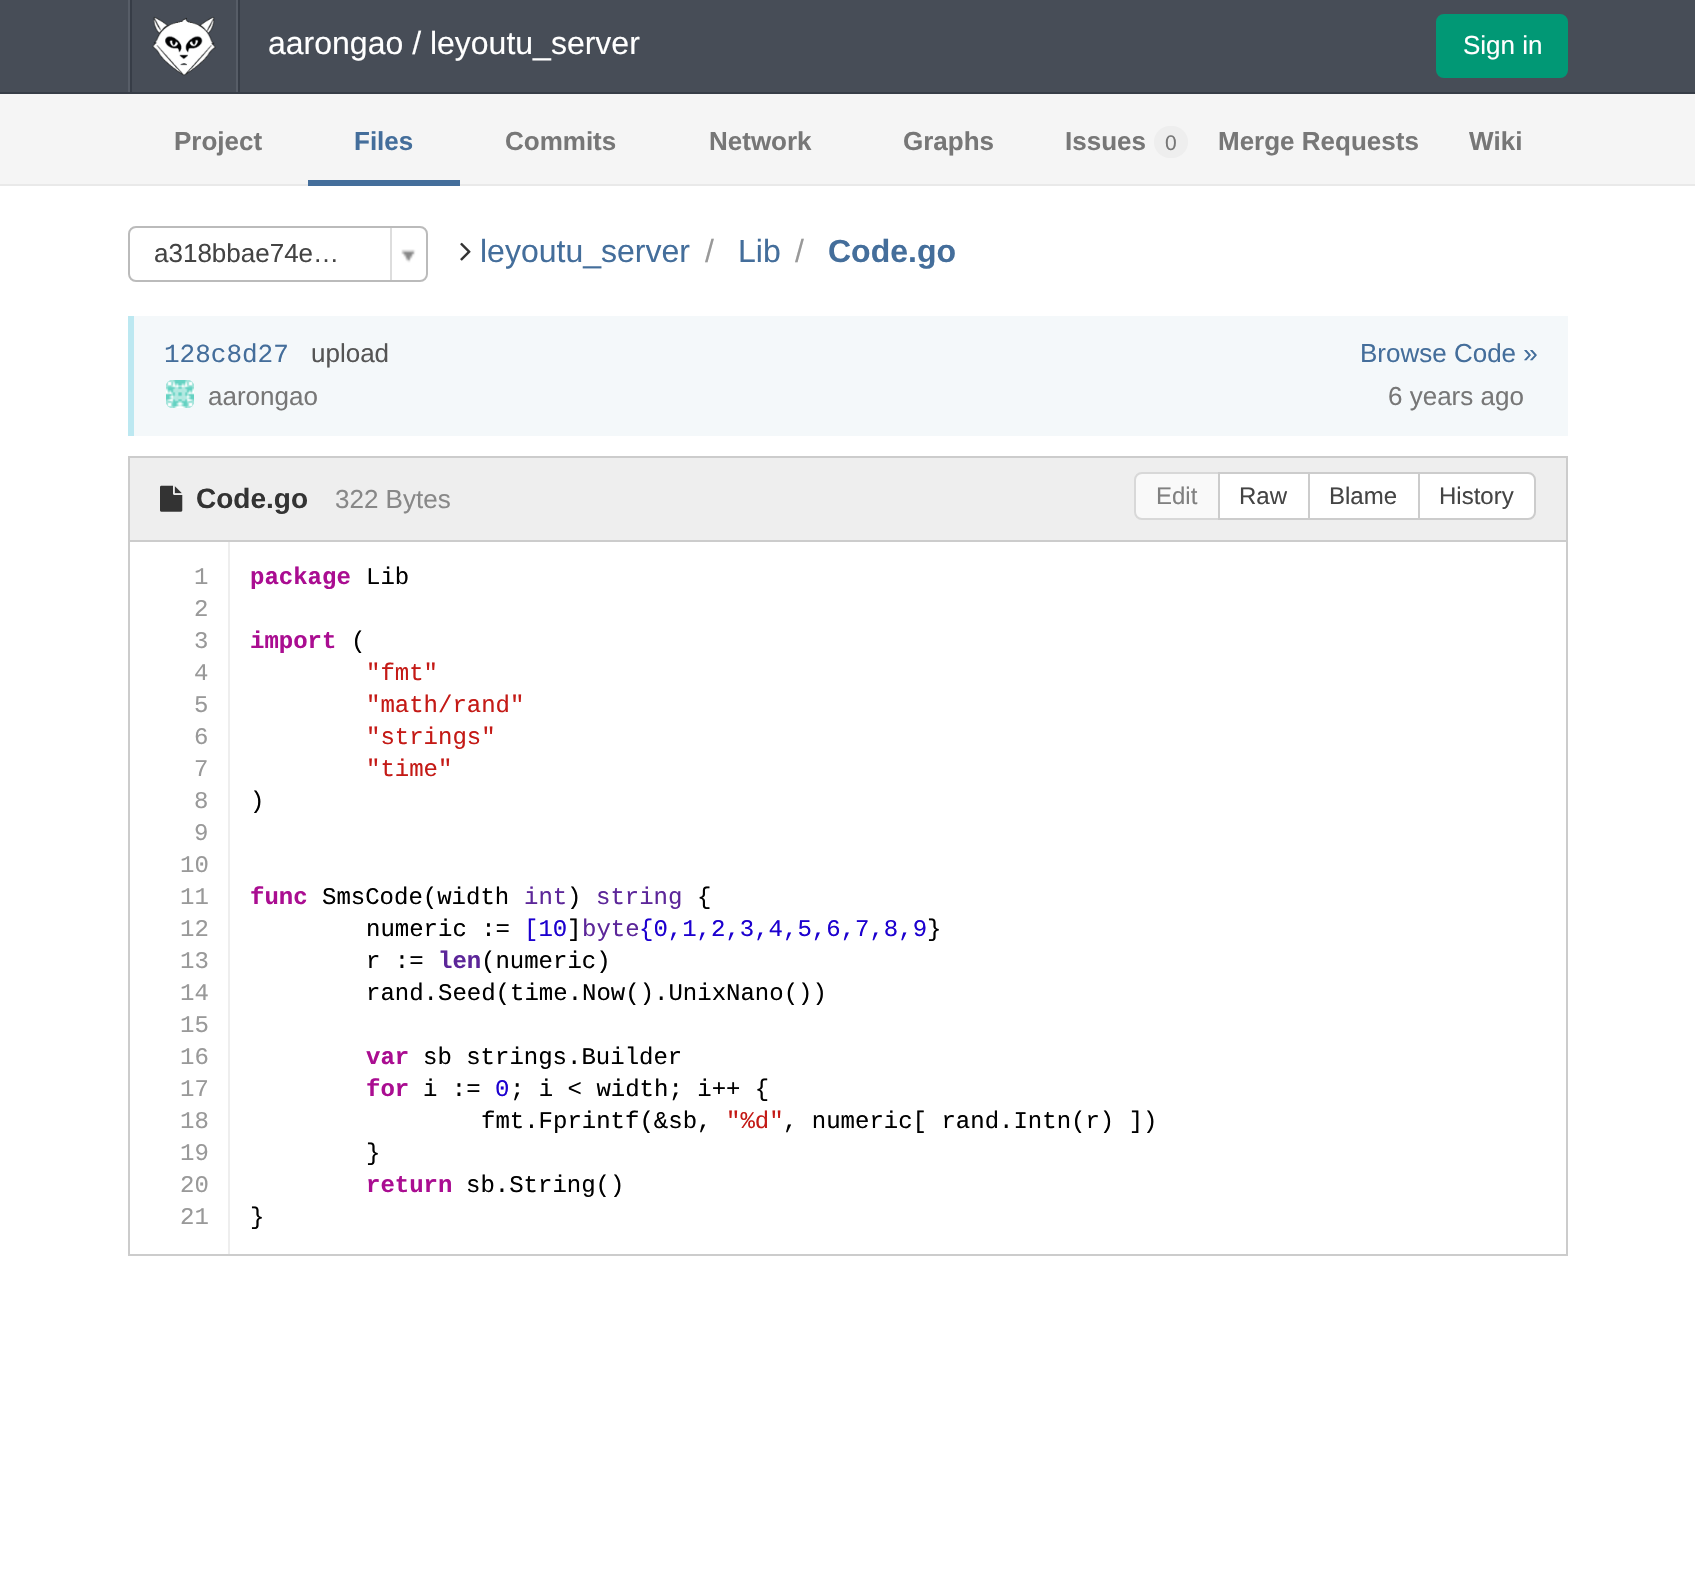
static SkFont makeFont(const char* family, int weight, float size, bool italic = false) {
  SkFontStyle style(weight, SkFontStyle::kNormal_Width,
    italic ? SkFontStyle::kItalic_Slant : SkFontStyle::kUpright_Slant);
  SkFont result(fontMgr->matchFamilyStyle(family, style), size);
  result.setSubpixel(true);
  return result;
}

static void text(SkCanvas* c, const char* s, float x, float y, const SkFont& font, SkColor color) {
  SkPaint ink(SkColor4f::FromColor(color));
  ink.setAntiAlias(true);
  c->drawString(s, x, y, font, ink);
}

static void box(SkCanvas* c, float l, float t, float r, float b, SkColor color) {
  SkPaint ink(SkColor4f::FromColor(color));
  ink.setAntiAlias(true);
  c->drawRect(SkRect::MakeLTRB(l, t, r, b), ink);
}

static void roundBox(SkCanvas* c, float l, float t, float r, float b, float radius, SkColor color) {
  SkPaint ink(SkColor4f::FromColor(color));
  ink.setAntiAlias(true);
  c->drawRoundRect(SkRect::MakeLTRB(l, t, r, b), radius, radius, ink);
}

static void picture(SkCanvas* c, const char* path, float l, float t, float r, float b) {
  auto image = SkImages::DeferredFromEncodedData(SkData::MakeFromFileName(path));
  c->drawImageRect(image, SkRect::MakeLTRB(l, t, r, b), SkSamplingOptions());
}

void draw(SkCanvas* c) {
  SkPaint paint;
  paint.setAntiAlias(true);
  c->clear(0xffffffff);
  box(c, 0, 0, 1695, 92, 0xff474d57);
  box(c, 0, 92, 1695, 94, 0xff373d47);
  box(c, 130, 0, 132, 92, 0xff373d47);
  box(c, 128, 0, 130, 92, 0xff575d67);
  picture(c, "img_01.png", 152, 16, 216, 76);
  box(c, 238, 0, 240, 92, 0xff373d47);
  box(c, 236, 0, 238, 92, 0xff575d67);
  SkFont face1 = makeFont("Liberation Sans", 400, 32);
  text(c, "aarongao / leyoutu_server", 268, 54, face1, 0xffffffff);
  paint.setColor(0xff019875);
  c->drawRoundRect(SkRect::MakeLTRB(1437, 15, 1567, 77), 7, 7, paint);
  paint.setStyle(SkPaint::kStroke_Style);
  paint.setStrokeWidth(2);
  c->drawRoundRect(SkRect::MakeLTRB(1437, 15, 1567, 77), 7, 7, paint);
  SkFont face2 = makeFont("Liberation Sans", 400, 26);
  text(c, "Sign in", 1463, 54, face2, 0xffffffff);
  box(c, 0, 94, 1695, 184, 0xfff5f5f5);
  box(c, 0, 184, 1695, 186, 0xffe9e9e9);
  SkFont face3 = makeFont("Liberation Sans", 700, 26);
  text(c, "Project", 174, 150, face3, 0xff777777);
  box(c, 308, 180, 460, 186, 0xff446e9b);
  text(c, "Files", 354, 150, face3, 0xff446e9b);
  text(c, "Commits", 505, 150, face3, 0xff777777);
  text(c, "Network", 709, 150, face3, 0xff777777);
  text(c, "Graphs", 903, 150, face3, 0xff777777);
  text(c, "Issues", 1065, 150, face3, 0xff777777);
  roundBox(c, 1154, 126, 1188, 158, 16, 0xffeeeeee);
  SkFont face4 = makeFont("Liberation Sans", 400, 21);
  text(c, "0", 1165, 150, face4, 0xff777777);
  text(c, "Merge Requests", 1218, 150, face3, 0xff777777);
  text(c, "Wiki", 1469, 150, face3, 0xff777777);
  picture(c, "img_02.png", 460, 242, 471, 261);
  text(c, "leyoutu_server", 480, 262, face1, 0xff446e9b);
  text(c, "/", 705, 262, face1, 0xff999999);
  text(c, "Lib", 738, 262, face1, 0xff446e9b);
  text(c, "/", 795, 262, face1, 0xff999999);
  SkFont face5 = makeFont("Liberation Sans", 700, 32);
  text(c, "Code.go", 828, 262, face5, 0xff446e9b);
  box(c, 134, 316, 1568, 436, 0xfff4f8fa);
  box(c, 128, 316, 134, 436, 0xffbce8f1);
  SkFont face6 = makeFont("Liberation Mono", 400, 26);
  text(c, "128c8d27", 164, 362, face6, 0xff446e9b);
  text(c, "upload", 311, 362, face2, 0xff555555);
  text(c, "Browse Code »", 1360, 362, face2, 0xff446e9b);
  picture(c, "img_03.png", 166, 380, 194, 408);
  text(c, "aarongao", 208, 405, face2, 0xff777777);
  text(c, "6 years ago", 1388, 405, face2, 0xff777777);
  paint.setColor(0xffcccccc);
  c->drawRect(SkRect::MakeLTRB(129, 457, 1567, 1255), paint);
  box(c, 130, 458, 1566, 540, 0xffeeeeee);
  box(c, 130, 540, 1566, 542, 0xffcccccc);
  picture(c, "img_04.png", 160, 485, 183, 512);
  SkFont face7 = makeFont("Liberation Sans", 700, 28);
  text(c, "Code.go", 196, 508, face7, 0xff333333);
  text(c, "322 Bytes", 335, 508, face2, 0xff888888);
  paint.setStyle(SkPaint::kFill_Style);
  paint.setColor(0xfff9f9f9);
  c->drawPath(SkPathBuilder().moveTo(1142, 473).lineTo(1219, 473).lineTo(1219, 519).lineTo(1142, 519).cubicTo(1138, 519, 1135, 516, 1135, 512).lineTo(1135, 480).cubicTo(1135, 476, 1138, 473, 1142, 473).close().detach(), paint);
  paint.setStyle(SkPaint::kStroke_Style);
  paint.setColor(0xffd8d8d8);
  c->drawPath(SkPathBuilder().moveTo(1142, 473).lineTo(1219, 473).lineTo(1219, 519).lineTo(1142, 519).cubicTo(1138, 519, 1135, 516, 1135, 512).lineTo(1135, 480).cubicTo(1135, 476, 1138, 473, 1142, 473).close().detach(), paint);
  SkFont face8 = makeFont("Liberation Sans", 400, 24);
  text(c, "Edit", 1156, 504, face8, 0xff808080);
  paint.setStyle(SkPaint::kFill_Style);
  paint.setColor(0xffffffff);
  c->drawRect(SkRect::MakeLTRB(1219, 473, 1309, 519), paint);
  paint.setStyle(SkPaint::kStroke_Style);
  paint.setColor(0xffcccccc);
  c->drawRect(SkRect::MakeLTRB(1219, 473, 1309, 519), paint);
  text(c, "Raw", 1239, 504, face8, 0xff444444);
  paint.setStyle(SkPaint::kFill_Style);
  paint.setColor(0xffffffff);
  c->drawRect(SkRect::MakeLTRB(1309, 473, 1419, 519), paint);
  paint.setStyle(SkPaint::kStroke_Style);
  paint.setColor(0xffcccccc);
  c->drawRect(SkRect::MakeLTRB(1309, 473, 1419, 519), paint);
  text(c, "Blame", 1329, 504, face8, 0xff444444);
  paint.setStyle(SkPaint::kFill_Style);
  paint.setColor(0xffffffff);
  c->drawPath(SkPathBuilder().moveTo(1419, 473).lineTo(1528, 473).cubicTo(1532, 473, 1535, 476, 1535, 480).lineTo(1535, 512).cubicTo(1535, 516, 1532, 519, 1528, 519).lineTo(1419, 519).close().detach(), paint);
  paint.setStyle(SkPaint::kStroke_Style);
  paint.setColor(0xffcccccc);
  c->drawPath(SkPathBuilder().moveTo(1419, 473).lineTo(1528, 473).cubicTo(1532, 473, 1535, 476, 1535, 480).lineTo(1535, 512).cubicTo(1535, 516, 1532, 519, 1528, 519).lineTo(1419, 519).close().detach(), paint);
  text(c, "History", 1439, 504, face8, 0xff444444);
  SkFont face9 = makeFont("Liberation Mono", 400, 24);
  text(c, "1", 194, 584, face9, 0xff999999);
  text(c, "2", 194, 616, face9, 0xff999999);
  text(c, "3", 194, 648, face9, 0xff999999);
  text(c, "4", 194, 680, face9, 0xff999999);
  text(c, "5", 194, 712, face9, 0xff999999);
  text(c, "6", 194, 744, face9, 0xff999999);
  text(c, "7", 194, 776, face9, 0xff999999);
  text(c, "8", 194, 808, face9, 0xff999999);
  text(c, "9", 194, 840, face9, 0xff999999);
  text(c, "10", 180, 872, face9, 0xff999999);
  text(c, "11", 180, 904, face9, 0xff999999);
  text(c, "12", 180, 936, face9, 0xff999999);
  text(c, "13", 180, 968, face9, 0xff999999);
  text(c, "14", 180, 1000, face9, 0xff999999);
  text(c, "15", 180, 1032, face9, 0xff999999);
  text(c, "16", 180, 1064, face9, 0xff999999);
  text(c, "17", 180, 1096, face9, 0xff999999);
  text(c, "18", 180, 1128, face9, 0xff999999);
  text(c, "19", 180, 1160, face9, 0xff999999);
  text(c, "20", 180, 1192, face9, 0xff999999);
  text(c, "21", 180, 1224, face9, 0xff999999);
  box(c, 228, 542, 230, 1254, 0xffeeeeee);
  SkFont face10 = makeFont("Liberation Mono", 700, 24);
  text(c, "package", 250, 584, face10, 0xffaa0d91);
  text(c, "Lib", 366, 584, face9, 0xff000000);
  text(c, "import", 250, 648, face10, 0xffaa0d91);
  text(c, "(", 351, 648, face9, 0xff000000);
  text(c, "\"fmt\"", 366, 680, face9, 0xffc41a16);
  text(c, "\"math/rand\"", 366, 712, face9, 0xffc41a16);
  text(c, "\"strings\"", 366, 744, face9, 0xffc41a16);
  text(c, "\"time\"", 366, 776, face9, 0xffc41a16);
  text(c, ")", 250, 808, face9, 0xff000000);
  text(c, "func", 250, 904, face10, 0xffaa0d91);
  text(c, "SmsCode(width", 322, 904, face9, 0xff000000);
  text(c, "int", 524, 904, face9, 0xff5c2699);
  text(c, ")", 567, 904, face9, 0xff000000);
  text(c, "string", 596, 904, face9, 0xff5c2699);
  text(c, "{", 697, 904, face9, 0xff000000);
  text(c, "numeric :=", 366, 936, face9, 0xff000000);
  text(c, "[10", 524, 936, face9, 0xff1c00cf);
  text(c, "]", 567, 936, face9, 0xff000000);
  text(c, "byte", 582, 936, face9, 0xff5c2699);
  text(c, "{0,1,2,3,4,5,6,7,8,9", 639, 936, face9, 0xff1c00cf);
  text(c, "}", 927, 936, face9, 0xff000000);
  text(c, "r :=", 366, 968, face9, 0xff000000);
  text(c, "len", 438, 968, face10, 0xff5c2699);
  text(c, "(numeric)", 481, 968, face9, 0xff000000);
  text(c, "rand.Seed(time.Now().UnixNano())", 366, 1000, face9, 0xff000000);
  text(c, "var", 366, 1064, face10, 0xffaa0d91);
  text(c, "sb strings.Builder", 423, 1064, face9, 0xff000000);
  text(c, "for", 366, 1096, face10, 0xffaa0d91);
  text(c, "i :=", 423, 1096, face9, 0xff000000);
  text(c, "0", 495, 1096, face9, 0xff1c00cf);
  text(c, "; i < width; i++ {", 510, 1096, face9, 0xff000000);
  text(c, "fmt.Fprintf(&sb,", 481, 1128, face9, 0xff000000);
  text(c, "\"%d\"", 726, 1128, face9, 0xffc41a16);
  text(c, ", numeric[ rand.Intn(r) ])", 783, 1128, face9, 0xff000000);
  text(c, "}", 366, 1160, face9, 0xff000000);
  text(c, "return", 366, 1192, face10, 0xffaa0d91);
  text(c, "sb.String()", 466, 1192, face9, 0xff000000);
  text(c, "}", 250, 1224, face9, 0xff000000);
  paint.setColor(0xffbbbbbb);
  c->drawRoundRect(SkRect::MakeLTRB(129, 227, 427, 281), 7, 7, paint);
  text(c, "a318bbae74e…", 154, 262, face2, 0xff444444);
  box(c, 390, 228, 392, 280, 0xffdddddd);
  picture(c, "img_05.png", 401, 249, 416, 263);
}
